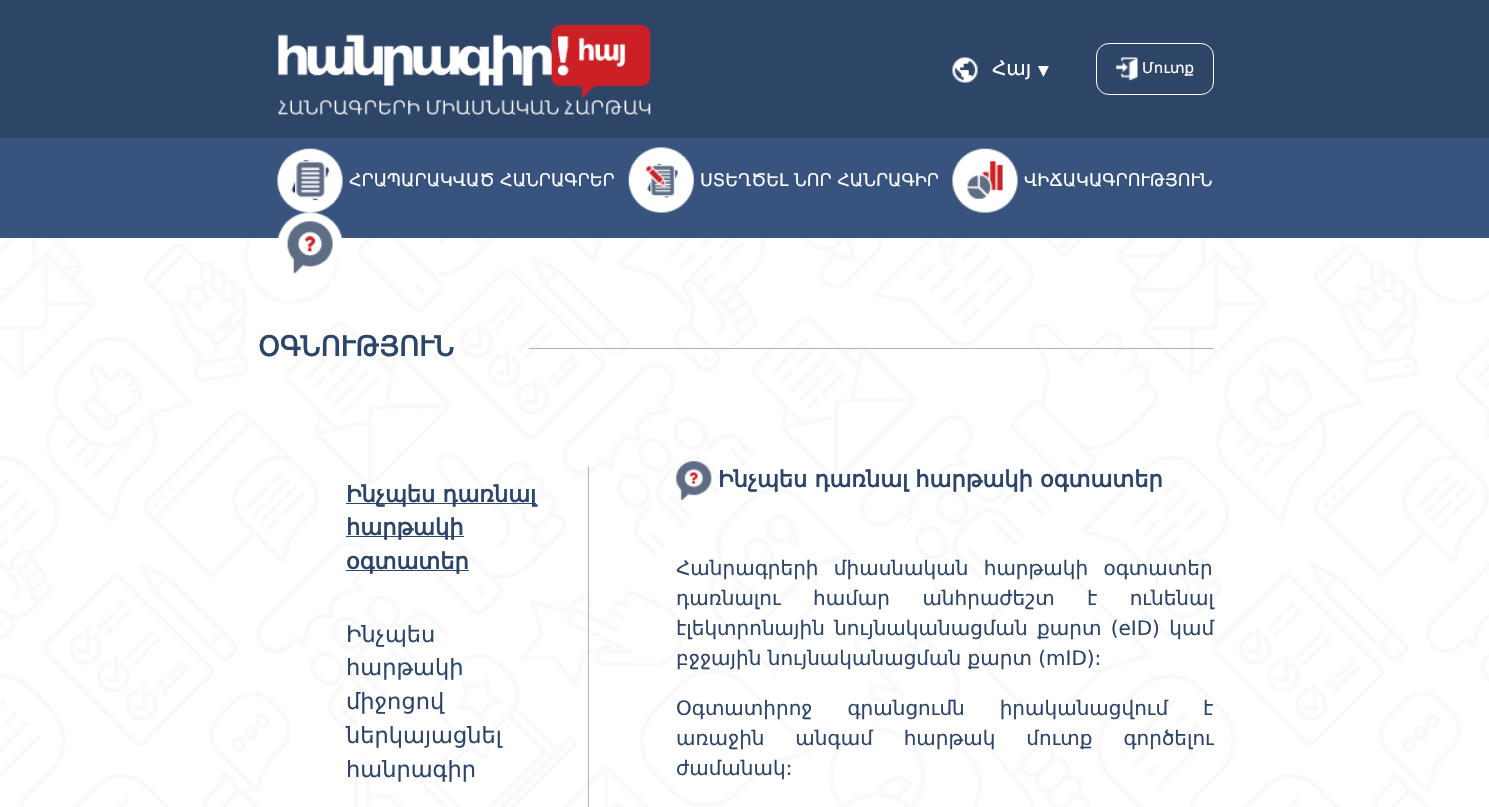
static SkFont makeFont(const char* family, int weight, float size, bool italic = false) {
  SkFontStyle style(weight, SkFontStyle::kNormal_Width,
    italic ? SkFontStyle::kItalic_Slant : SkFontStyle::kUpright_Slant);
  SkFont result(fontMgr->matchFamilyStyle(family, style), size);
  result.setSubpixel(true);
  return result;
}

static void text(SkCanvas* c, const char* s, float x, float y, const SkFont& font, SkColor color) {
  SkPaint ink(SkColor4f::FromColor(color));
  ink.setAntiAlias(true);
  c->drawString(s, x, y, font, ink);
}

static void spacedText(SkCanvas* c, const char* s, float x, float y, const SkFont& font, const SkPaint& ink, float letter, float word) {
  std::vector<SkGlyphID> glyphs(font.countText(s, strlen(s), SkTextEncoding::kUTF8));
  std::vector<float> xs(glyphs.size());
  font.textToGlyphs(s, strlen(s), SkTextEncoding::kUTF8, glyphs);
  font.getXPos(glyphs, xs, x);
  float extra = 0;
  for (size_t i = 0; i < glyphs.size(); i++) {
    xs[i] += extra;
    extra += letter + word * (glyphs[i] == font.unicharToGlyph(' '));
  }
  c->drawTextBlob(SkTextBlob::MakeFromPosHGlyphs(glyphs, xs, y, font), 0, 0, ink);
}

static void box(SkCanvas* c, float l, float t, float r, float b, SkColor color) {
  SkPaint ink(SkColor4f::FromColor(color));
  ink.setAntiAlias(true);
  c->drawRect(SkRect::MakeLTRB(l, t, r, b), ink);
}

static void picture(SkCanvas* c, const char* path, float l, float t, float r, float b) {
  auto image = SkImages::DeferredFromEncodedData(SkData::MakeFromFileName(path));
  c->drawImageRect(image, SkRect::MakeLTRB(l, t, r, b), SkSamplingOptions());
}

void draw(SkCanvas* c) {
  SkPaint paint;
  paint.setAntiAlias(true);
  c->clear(0xffffffff);
  picture(c, "img_01.png", 0, 238, 1489, 807);
  box(c, 0, 0, 1489, 138, 0xff2d4567);
  picture(c, "img_02.png", 278, 25, 651, 115);
  picture(c, "img_03.png", 952, 57, 978, 83);
  SkFont face1 = makeFont("DejaVu Sans", 400, 20);
  text(c, "Հայ", 992, 75, face1, 0xffffffff);
  SkFont face2 = makeFont("DejaVu Sans", 400, 14);
  text(c, "▼", 1038, 75, face2, 0xffffffff);
  paint.setStyle(SkPaint::kStroke_Style);
  paint.setStrokeWidth(1);
  paint.setColor(0xffffffff);
  c->drawRoundRect(SkRect::MakeLTRB(1096.5f, 43.5f, 1213.5f, 94.5f), 12.5f, 12.5f, paint);
  picture(c, "img_04.png", 1116, 57, 1138, 81);
  SkFont face3 = makeFont("DejaVu Sans", 400, 15);
  text(c, "Մուտք", 1142, 73, face3, 0xffffffff);
  box(c, 0, 138, 1489, 238, 0xff38547e);
  picture(c, "img_05.png", 277, 148, 343, 213);
  SkFont face4 = makeFont("DejaVu Sans", 400, 17.5f);
  text(c, "ՀՐԱՊԱՐԱԿՎԱԾ ՀԱՆՐԱԳՐԵՐ", 349, 186, face4, 0xffffffff);
  picture(c, "img_06.png", 628, 147, 694, 213);
  text(c, "ՍՏԵՂԾԵԼ ՆՈՐ ՀԱՆՐԱԳԻՐ", 700, 186, face4, 0xffffffff);
  picture(c, "img_07.png", 952, 148, 1018, 213);
  text(c, "ՎԻՃԱԿԱԳՐՈՒԹՅՈՒՆ", 1024, 186, face4, 0xffffffff);
  picture(c, "img_08.png", 277, 212, 343, 274);
  SkFont face5 = makeFont("DejaVu Sans", 700, 27.5f);
  text(c, "ՕԳՆՈՒԹՅՈՒՆ", 258, 356, face5, 0xff2d4567);
  box(c, 529, 348, 1214, 349, 0xffacb5c6);
  box(c, 588, 466, 589, 807, 0xffacb5c6);
  box(c, 346, 503, 536, 504, 0xff2d4567);
  SkFont face6 = makeFont("DejaVu Sans", 700, 22.5f);
  text(c, "Ինչպես դառնալ", 346, 502, face6, 0xff2d4567);
  box(c, 346, 536, 464, 537, 0xff2d4567);
  text(c, "հարթակի", 346, 535, face6, 0xff2d4567);
  box(c, 346, 570, 469, 571, 0xff2d4567);
  text(c, "օգտատեր", 346, 569, face6, 0xff2d4567);
  SkFont face7 = makeFont("DejaVu Sans", 400, 22.5f);
  text(c, "Ինչպես", 346, 642, face7, 0xff2d4567);
  text(c, "հարթակի", 346, 675, face7, 0xff2d4567);
  text(c, "միջոցով", 346, 709, face7, 0xff2d4567);
  text(c, "ներկայացնել", 346, 743, face7, 0xff2d4567);
  text(c, "հանրագիր", 346, 777, face7, 0xff2d4567);
  picture(c, "img_09.png", 676, 461, 712, 500);
  text(c, "Ինչպես դառնալ հարթակի օգտատեր", 718, 487, face6, 0xff2d4567);
  paint.setStyle(SkPaint::kFill_Style);
  paint.setColor(0xff2d4567);
  spacedText(c, "Հանրագրերի միասնական հարթակի օգտատեր", 676, 575, face1, paint, 0, 9);
  spacedText(c, "դառնալու համար անհրաժեշտ է ունենալ", 676, 605, face1, paint, 0, 26);
  spacedText(c, "էլեկտրոնային նույնականացման քարտ (eID) կամ", 676, 635, face1, paint, 0, 3);
  text(c, "բջջային նույնականացման քարտ (mID):", 676, 665, face1, 0xff2d4567);
  spacedText(c, "Օգտատիրոջ գրանցումն իրականացվում է", 676, 715, face1, paint, 0, 28.5f);
  spacedText(c, "առաջին անգամ հարթակ մուտք գործելու", 676, 745, face1, paint, 0, 24.5f);
  text(c, "ժամանակ:", 676, 775, face1, 0xff2d4567);
}
